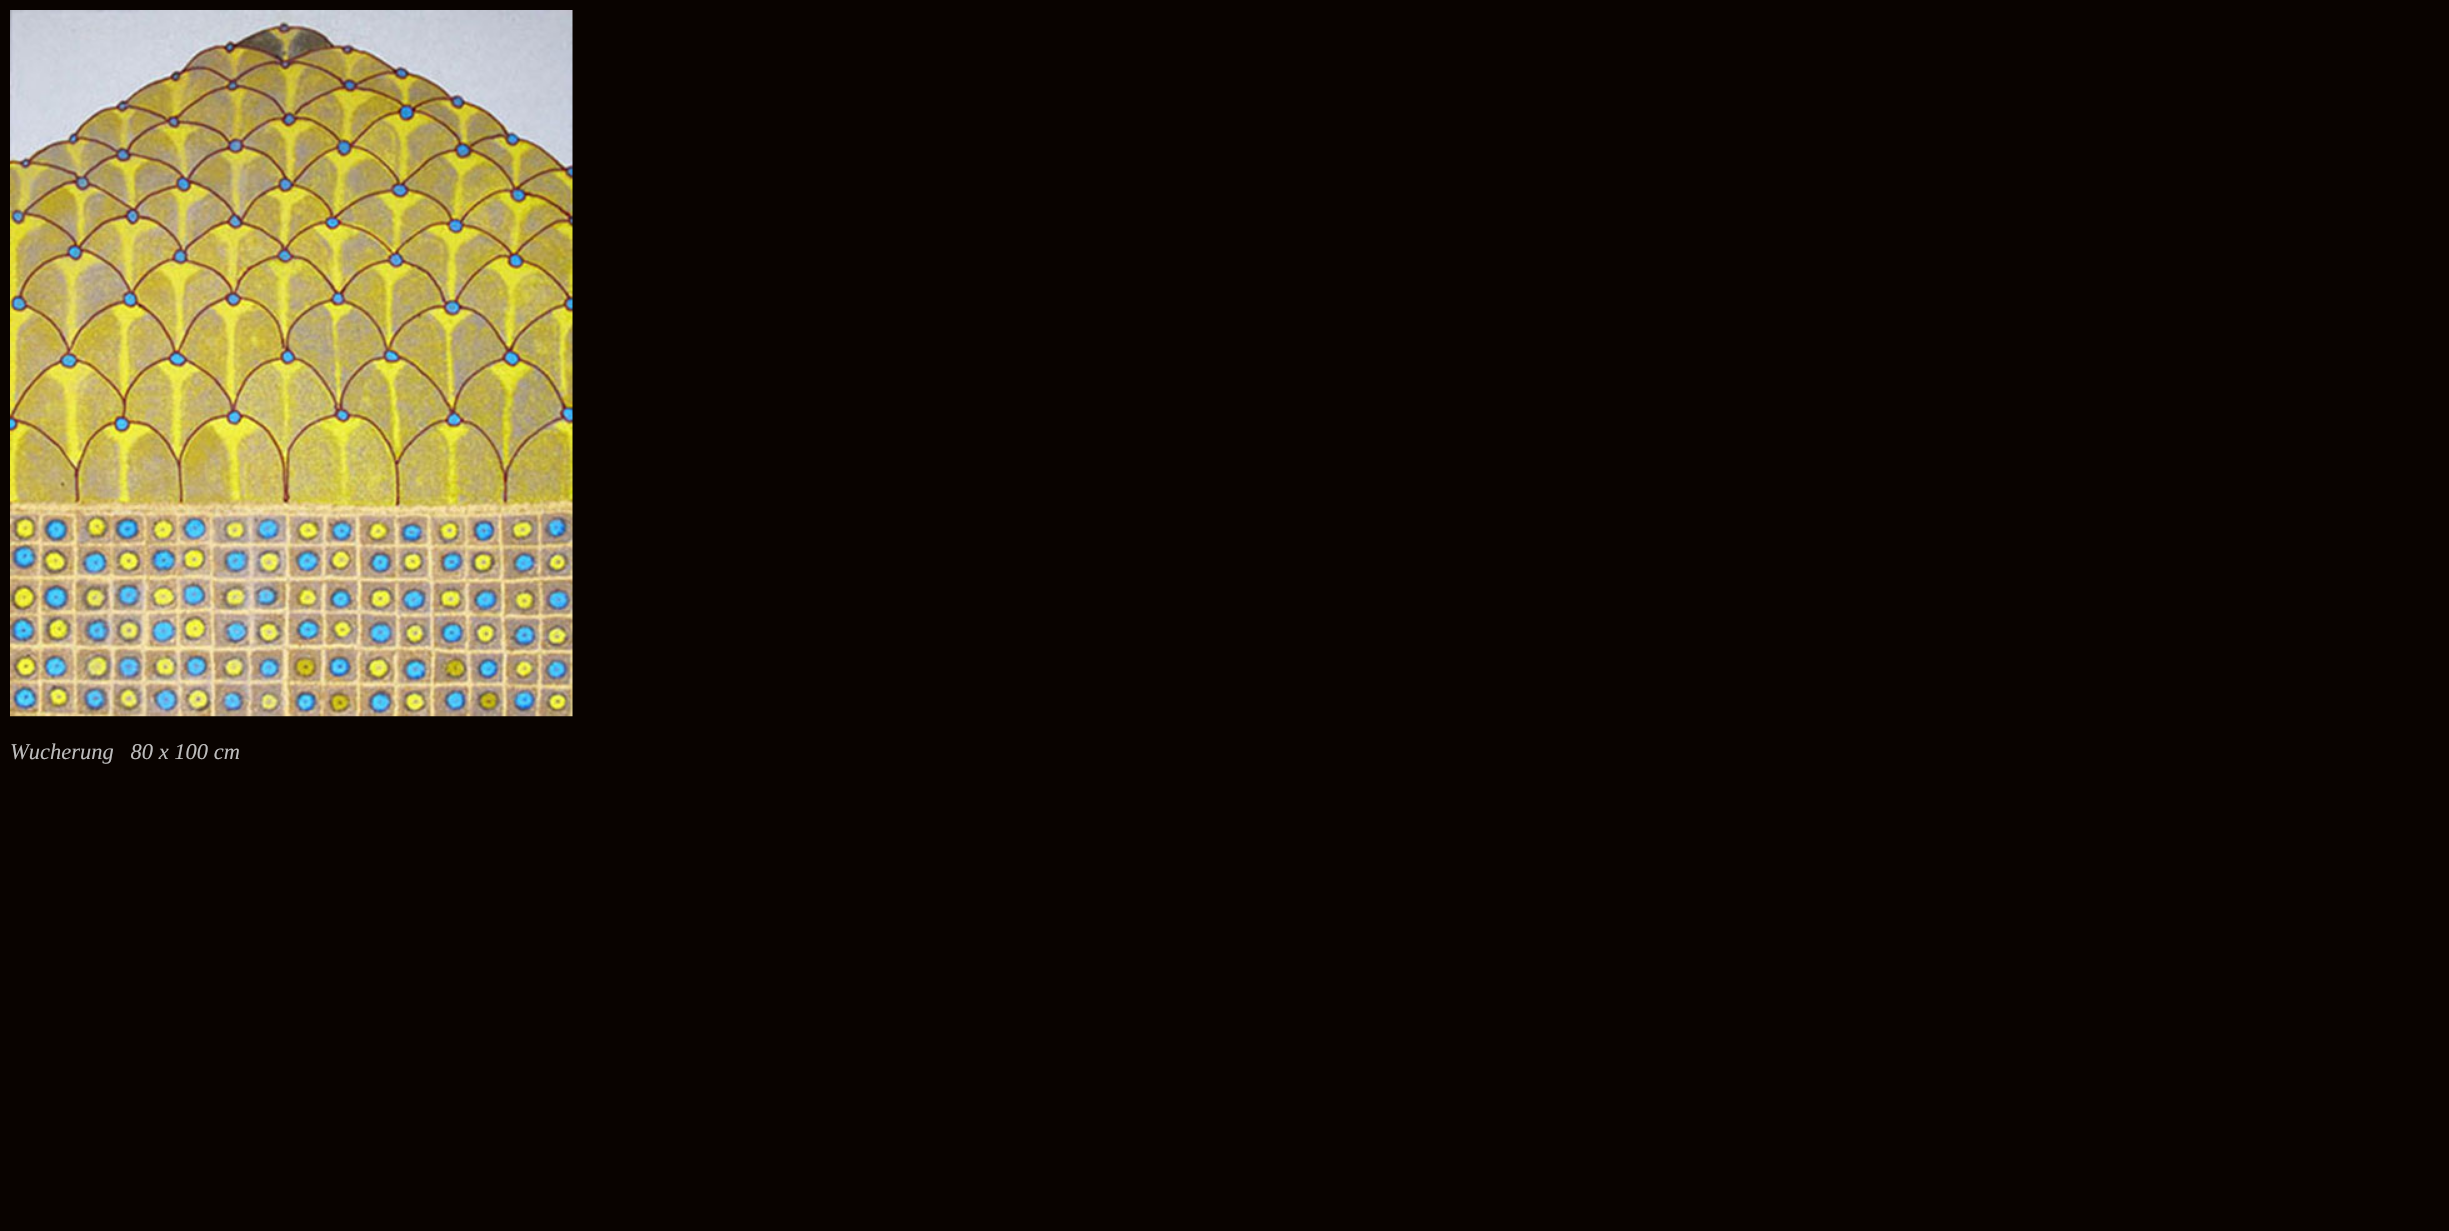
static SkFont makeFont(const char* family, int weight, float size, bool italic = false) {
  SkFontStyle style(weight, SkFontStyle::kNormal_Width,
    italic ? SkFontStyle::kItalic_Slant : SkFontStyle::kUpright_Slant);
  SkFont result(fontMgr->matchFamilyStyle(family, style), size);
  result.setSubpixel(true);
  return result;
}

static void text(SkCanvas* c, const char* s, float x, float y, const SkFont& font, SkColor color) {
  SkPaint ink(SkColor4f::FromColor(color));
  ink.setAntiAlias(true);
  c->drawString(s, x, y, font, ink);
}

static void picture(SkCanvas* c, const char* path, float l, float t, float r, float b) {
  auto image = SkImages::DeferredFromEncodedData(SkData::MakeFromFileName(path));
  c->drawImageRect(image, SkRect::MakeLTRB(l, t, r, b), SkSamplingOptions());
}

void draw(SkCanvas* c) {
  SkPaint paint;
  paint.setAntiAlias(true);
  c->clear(0xff090300);
  picture(c, "img_01.png", 10, 10, 573, 717);
  SkFont face1 = makeFont("Liberation Serif", 400, 22.5f, true);
  text(c, "Wucherung   80 x 100 cm", 10, 759, face1, 0xffbcbcbc);
}
